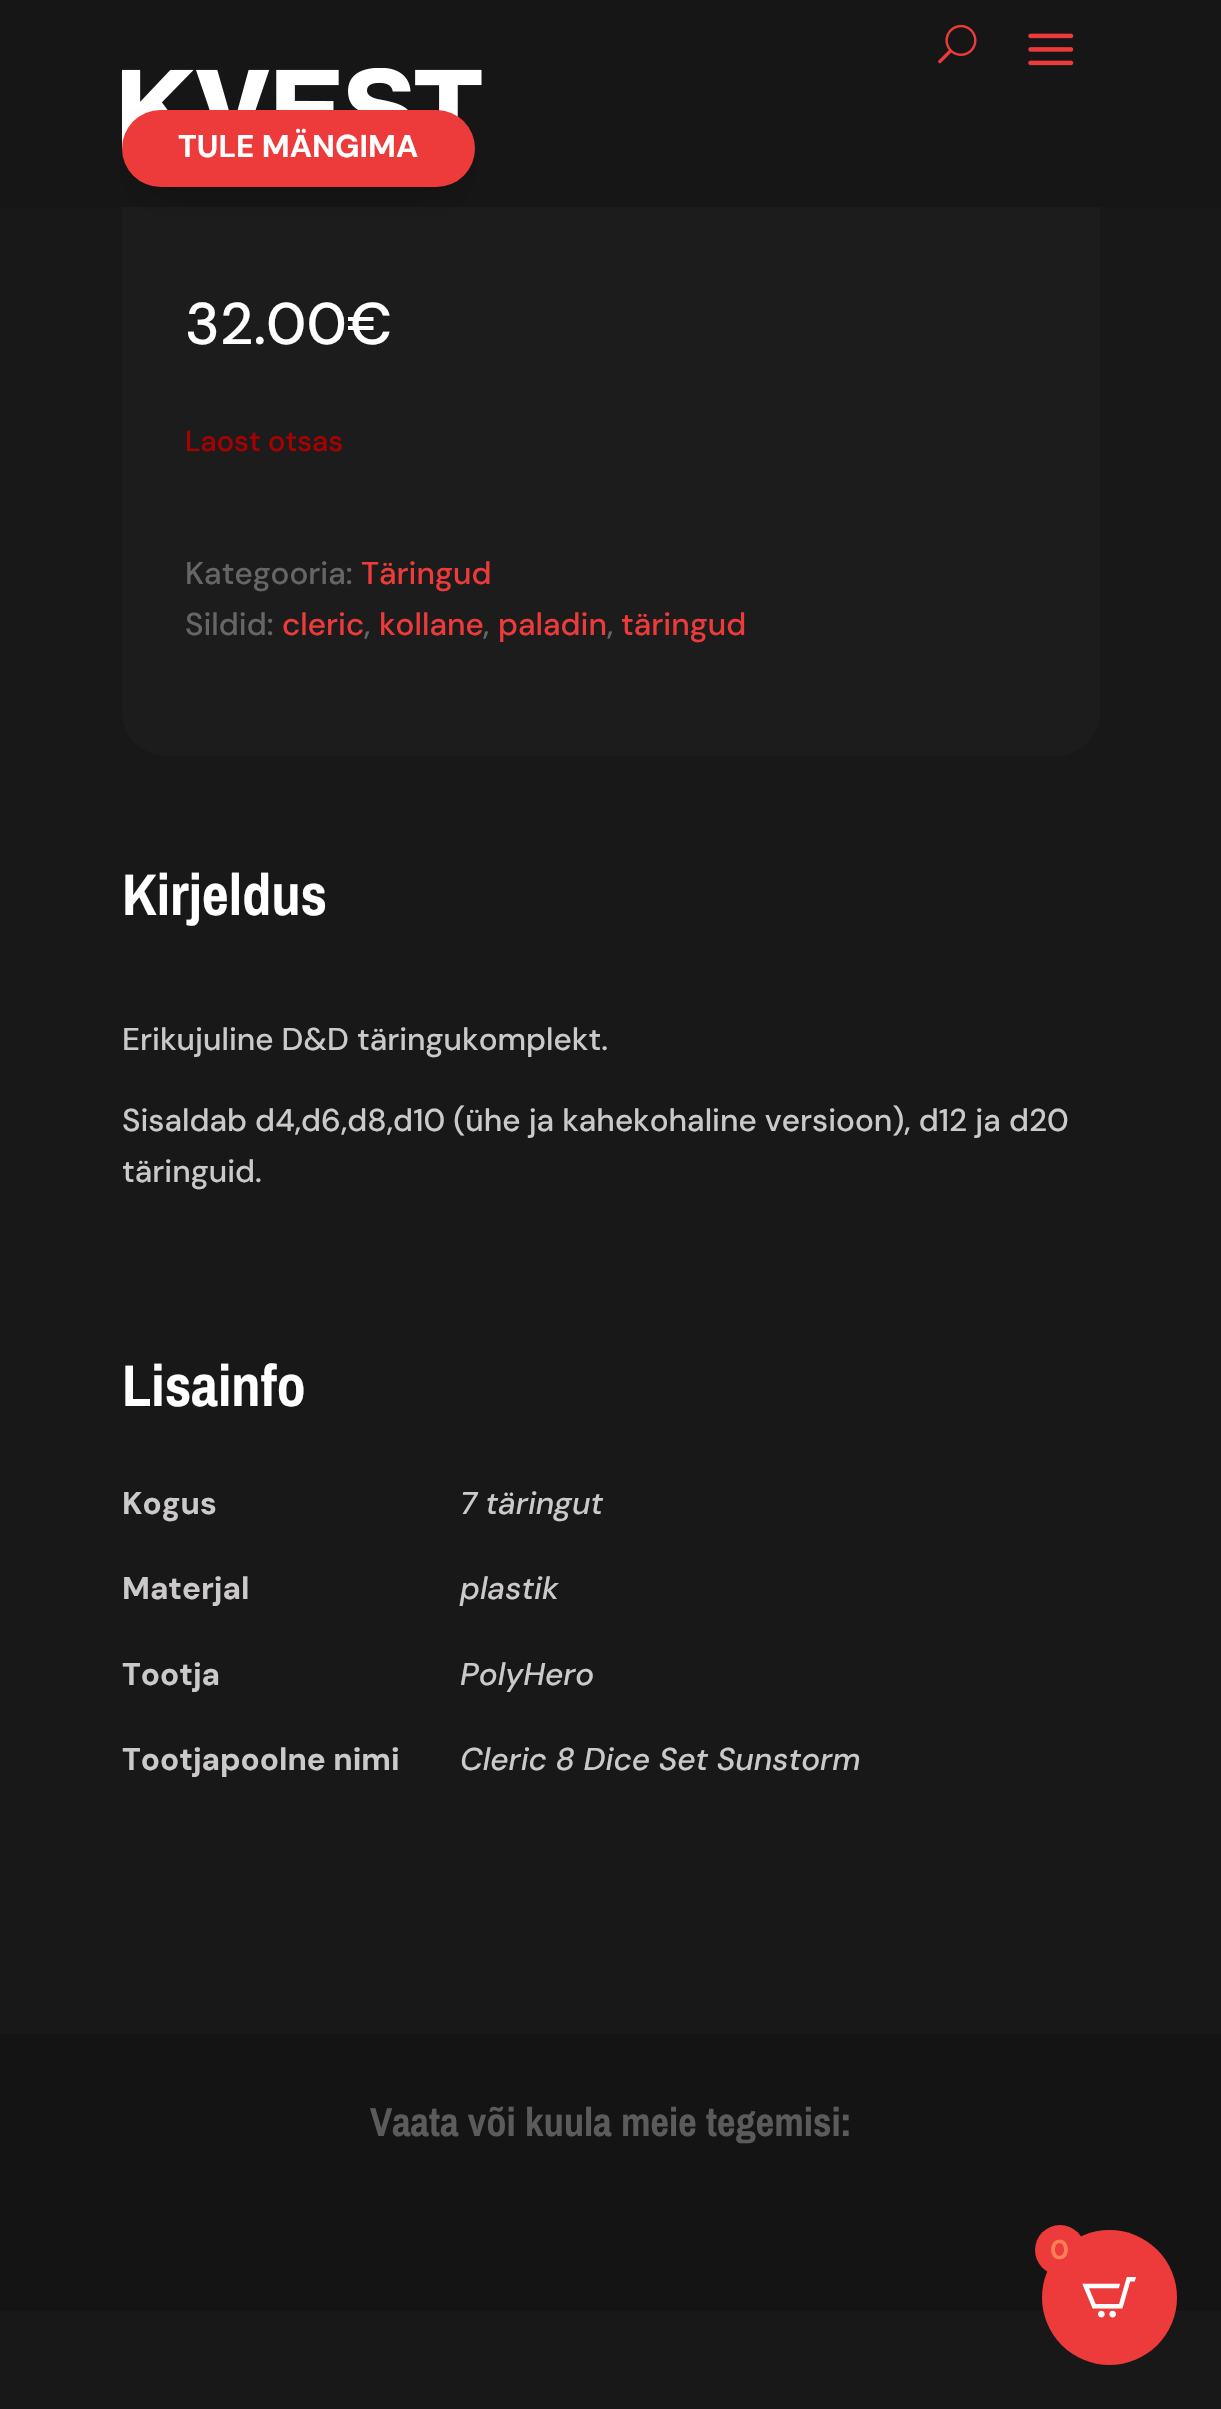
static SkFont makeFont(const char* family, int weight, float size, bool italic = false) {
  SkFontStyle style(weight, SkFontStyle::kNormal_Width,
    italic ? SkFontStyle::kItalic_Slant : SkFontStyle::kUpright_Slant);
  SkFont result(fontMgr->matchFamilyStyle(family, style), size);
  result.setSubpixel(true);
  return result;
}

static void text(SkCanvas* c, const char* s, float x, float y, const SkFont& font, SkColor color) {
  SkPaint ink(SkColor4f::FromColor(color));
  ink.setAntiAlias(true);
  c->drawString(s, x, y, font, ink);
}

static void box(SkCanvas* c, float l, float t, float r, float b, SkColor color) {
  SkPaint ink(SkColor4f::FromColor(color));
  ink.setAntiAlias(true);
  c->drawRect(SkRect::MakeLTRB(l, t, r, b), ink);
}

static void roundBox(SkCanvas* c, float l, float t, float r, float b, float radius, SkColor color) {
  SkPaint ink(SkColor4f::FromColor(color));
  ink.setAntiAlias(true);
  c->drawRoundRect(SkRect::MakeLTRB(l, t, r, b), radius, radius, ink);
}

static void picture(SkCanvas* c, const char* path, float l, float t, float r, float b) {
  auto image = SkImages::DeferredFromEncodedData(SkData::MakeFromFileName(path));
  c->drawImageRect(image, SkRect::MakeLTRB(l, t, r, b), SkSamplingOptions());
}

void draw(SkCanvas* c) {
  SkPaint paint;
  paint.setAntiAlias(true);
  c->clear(0xff191818);
  roundBox(c, 122, -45, 1100, 756, 45, 0xff1d1c1c);
  box(c, 0, 0, 1221, 207, 0xff161616);
  picture(c, "img_01.png", 938, 24, 977, 64);
  picture(c, "img_02.png", 1028, 33, 1074, 66);
  picture(c, "img_03.png", 122, 68, 482, 149);
  paint.setColor(0x4d000000);
  paint.setMaskFilter(SkMaskFilter::MakeBlur(kNormal_SkBlurStyle, 20));
  c->drawRoundRect(SkRect::MakeLTRB(142, 151, 455, 187), 18, 18, paint);
  paint.setMaskFilter(nullptr);
  roundBox(c, 122, 110, 475, 187, 38.5f, 0xffed3a3a);
  SkFont face1 = makeFont("DM Sans", 700, 31.5f);
  text(c, "TULE MÄNGIMA", 178, 157, face1, 0xffffffff);
  SkFont face2 = makeFont("DM Sans", 500, 58.5f);
  text(c, "32.00€", 185, 344, face2, 0xffffffff);
  SkFont face3 = makeFont("DM Sans", 500, 29);
  text(c, "Laost otsas", 185, 451, face3, 0xffaa0000);
  SkFont face4 = makeFont("DM Sans", 500, 31.5f);
  text(c, "Kategooria:", 185, 584, face4, 0xff666666);
  text(c, "Täringud", 361, 584, face4, 0xffed3a3a);
  text(c, "Sildid:", 185, 635, face4, 0xff666666);
  text(c, "cleric", 282, 635, face4, 0xffed3a3a);
  text(c, ",", 364, 635, face4, 0xff666666);
  text(c, "kollane", 379, 635, face4, 0xffed3a3a);
  text(c, ",", 483, 635, face4, 0xff666666);
  text(c, "paladin", 498, 635, face4, 0xffed3a3a);
  text(c, ",", 607, 635, face4, 0xff666666);
  text(c, "täringud", 621, 635, face4, 0xffed3a3a);
  SkFont face5 = makeFont("Archivo Narrow", 700, 58.5f);
  text(c, "Kirjeldus", 122, 915, face5, 0xffffffff);
  text(c, "Erikujuline D&D täringukomplekt.", 122, 1050, face4, 0xffcbc9c9);
  text(c, "Sisaldab d4,d6,d8,d10 (ühe ja kahekohaline versioon), d12 ja d20", 122, 1131, face4, 0xffcbc9c9);
  text(c, "täringuid.", 122, 1182, face4, 0xffcbc9c9);
  text(c, "Lisainfo", 122, 1406, face5, 0xffffffff);
  text(c, "Kogus", 122, 1514, face1, 0xffcbc9c9);
  SkFont face6 = makeFont("DM Sans", 500, 31.5f, true);
  text(c, "7 täringut", 460, 1514, face6, 0xffcbc9c9);
  text(c, "Materjal", 122, 1599, face1, 0xffcbc9c9);
  text(c, "plastik", 460, 1599, face6, 0xffcbc9c9);
  text(c, "Tootja", 122, 1685, face1, 0xffcbc9c9);
  text(c, "PolyHero", 460, 1685, face6, 0xffcbc9c9);
  text(c, "Tootjapoolne nimi", 122, 1770, face1, 0xffcbc9c9);
  text(c, "Cleric 8 Dice Set Sunstorm", 460, 1770, face6, 0xffcbc9c9);
  box(c, 0, 2034, 1221, 2311, 0xff141414);
  SkFont face7 = makeFont("Archivo Narrow", 700, 40.5f);
  text(c, "Vaata või kuula meie tegemisi:", 370, 2136, face7, 0xff5b5b5b);
  paint.setColor(0xffed3a3a);
  c->drawCircle(1109.5f, 2297.5f, 67.5f, paint);
  c->drawCircle(1060, 2250, 25, paint);
  SkFont face8 = makeFont("DM Sans", 700, 27);
  text(c, "0", 1050, 2259, face8, 0xffff8057);
  picture(c, "img_04.png", 1082, 2277, 1136, 2318);
}
